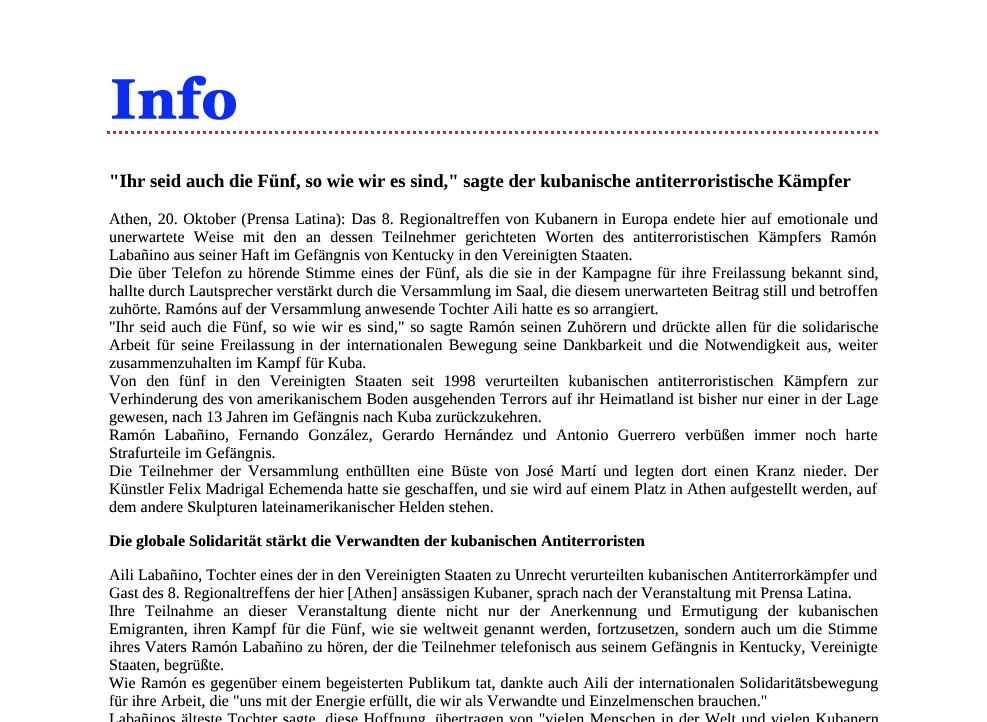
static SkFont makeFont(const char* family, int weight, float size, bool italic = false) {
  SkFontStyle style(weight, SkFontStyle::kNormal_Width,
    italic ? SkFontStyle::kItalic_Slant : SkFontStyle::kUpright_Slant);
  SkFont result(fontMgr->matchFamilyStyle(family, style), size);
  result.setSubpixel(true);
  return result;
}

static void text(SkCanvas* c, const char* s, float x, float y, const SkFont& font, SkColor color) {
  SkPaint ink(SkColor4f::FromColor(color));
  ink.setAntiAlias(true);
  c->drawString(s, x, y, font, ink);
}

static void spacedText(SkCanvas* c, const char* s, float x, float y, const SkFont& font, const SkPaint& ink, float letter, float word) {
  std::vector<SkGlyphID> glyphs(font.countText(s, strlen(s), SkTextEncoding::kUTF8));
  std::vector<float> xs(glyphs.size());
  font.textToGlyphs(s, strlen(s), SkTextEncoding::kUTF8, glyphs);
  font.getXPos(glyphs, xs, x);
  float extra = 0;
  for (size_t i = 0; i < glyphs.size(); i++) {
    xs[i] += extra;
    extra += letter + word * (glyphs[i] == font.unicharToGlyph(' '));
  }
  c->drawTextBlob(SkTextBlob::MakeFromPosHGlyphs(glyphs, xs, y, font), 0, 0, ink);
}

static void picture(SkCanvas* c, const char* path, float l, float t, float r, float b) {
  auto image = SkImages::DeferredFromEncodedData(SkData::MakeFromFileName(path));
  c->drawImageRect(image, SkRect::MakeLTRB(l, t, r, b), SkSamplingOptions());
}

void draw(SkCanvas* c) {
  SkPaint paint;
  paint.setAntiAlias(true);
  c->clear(0xffffffff);
  picture(c, "img_01.png", 112, 74, 236, 120);
  paint.setStyle(SkPaint::kStroke_Style);
  paint.setStrokeWidth(3);
  paint.setColor(0xffd21f44);
  paint.setPathEffect(SkDashPathEffect::Make({{3, 3}}, 0));
  c->drawPath(SkPathBuilder().moveTo(107, 132.5f).lineTo(880, 132.5f).detach(), paint);
  paint.setPathEffect(nullptr);
  SkFont face1 = makeFont("Liberation Serif", 700, 18.7f);
  text(c, "\"Ihr seid auch die Fünf, so wie wir es sind,\" sagte der kubanische antiterroristische Kämpfer", 109, 187, face1, 0xff000000);
  SkFont face2 = makeFont("Liberation Serif", 400, 16);
  paint.setStyle(SkPaint::kFill_Style);
  paint.setColor(0xff000000);
  spacedText(c, "Athen, 20. Oktober (Prensa Latina): Das 8. Regionaltreffen von Kubanern in Europa endete hier auf emotionale und", 109, 224, face2, paint, 0, 1.6f);
  spacedText(c, "unerwartete Weise mit den an dessen Teilnehmer gerichteten Worten des antiterroristischen Kämpfers Ramón", 109, 242, face2, paint, 0, 5.25f);
  text(c, "Labañino aus seiner Haft im Gefängnis von Kentucky in den Vereinigten Staaten.", 109, 260, face2, 0xff000000);
  spacedText(c, "Die über Telefon zu hörende Stimme eines der Fünf, als die sie in der Kampagne für ihre Freilassung bekannt sind,", 109, 278, face2, paint, 0, 1.7f);
  text(c, "hallte durch Lautsprecher verstärkt durch die Versammlung im Saal, die diesem unerwarteten Beitrag still und betroffen", 109, 296, face2, 0xff000000);
  text(c, "zuhörte. Ramóns auf der Versammlung anwesende Tochter Aili hatte es so arrangiert.", 109, 314, face2, 0xff000000);
  spacedText(c, "\"Ihr seid auch die Fünf, so wie wir es sind,\" so sagte Ramón seinen Zuhörern und drückte allen für die solidarische", 109, 332, face2, paint, 0, 1.7f);
  spacedText(c, "Arbeit für seine Freilassung in der internationalen Bewegung seine Dankbarkeit und die Notwendigkeit aus, weiter", 109, 350, face2, paint, 0, 2.4f);
  text(c, "zusammenzuhalten im Kampf für Kuba.", 109, 368, face2, 0xff000000);
  spacedText(c, "Von den fünf in den Vereinigten Staaten seit 1998 verurteilten kubanischen antiterroristischen Kämpfern zur", 109, 386, face2, paint, 0, 5.6f);
  spacedText(c, "Verhinderung des von amerikanischem Boden ausgehenden Terrors auf ihr Heimatland ist bisher nur einer in der Lage", 109, 404, face2, paint, 0, 0.6f);
  text(c, "gewesen, nach 13 Jahren im Gefängnis nach Kuba zurückzukehren.", 109, 422, face2, 0xff000000);
  spacedText(c, "Ramón Labañino, Fernando González, Gerardo Hernández und Antonio Guerrero verbüßen immer noch harte", 109, 440, face2, paint, 0, 5.4f);
  text(c, "Strafurteile im Gefängnis.", 109, 458, face2, 0xff000000);
  spacedText(c, "Die Teilnehmer der Versammlung enthüllten eine Büste von José Martí und legten dort einen Kranz", 109, 476, face2, paint, 0, 3.25f);
  spacedText(c, "nieder. Der", 803, 476, face2, paint, 0, 3.25f);
  spacedText(c, "Künstler Felix Madrigal Echemenda hatte sie geschaffen, und sie wird auf einem Platz in Athen aufgestellt werden, auf", 109, 494, face2, paint, 0, 0.25f);
  text(c, "dem andere Skulpturen lateinamerikanischer Helden stehen.", 109, 512, face2, 0xff000000);
  SkFont face3 = makeFont("Liberation Serif", 700, 16);
  text(c, "Die globale Solidarität stärkt die Verwandten der kubanischen Antiterroristen", 109, 546, face3, 0xff000000);
  text(c, "Aili Labañino, Tochter eines der in den Vereinigten Staaten zu Unrecht verurteilten kubanischen Antiterrorkämpfer und", 109, 580, face2, 0xff000000);
  text(c, "Gast des 8. Regionaltreffens der hier [Athen] ansässigen Kubaner, sprach nach der Veranstaltung mit Prensa Latina.", 109, 598, face2, 0xff000000);
  spacedText(c, "Ihre Teilnahme an dieser Veranstaltung diente nicht nur der Anerkennung und Ermutigung der kubanischen", 109, 616, face2, paint, 0, 6.1f);
  spacedText(c, "Emigranten, ihren Kampf für die Fünf, wie sie weltweit genannt werden, fortzusetzen, sondern auch um die Stimme", 109, 634, face2, paint, 0, 1.6f);
  spacedText(c, "ihres Vaters Ramón Labañino zu hören, der die Teilnehmer telefonisch aus seinem Gefängnis in Kentucky, Vereinigte", 109, 652, face2, paint, 0, 0.75f);
  text(c, "Staaten, begrüßte.", 109, 670, face2, 0xff000000);
  spacedText(c, "Wie Ramón es gegenüber einem begeisterten Publikum tat, dankte auch Aili der internationalen Solidaritätsbewegung", 109, 688, face2, paint, 0, 1);
  text(c, "für ihre Arbeit, die \"uns mit der Energie erfüllt, die wir als Verwandte und Einzelmenschen brauchen.\"", 109, 706, face2, 0xff000000);
  spacedText(c, "Labañinos älteste Tochter sagte, diese Hoffnung, übertragen von \"vielen Menschen in der Welt und vielen Kubanern", 109, 724, face2, paint, 0, 1.5f);
}
